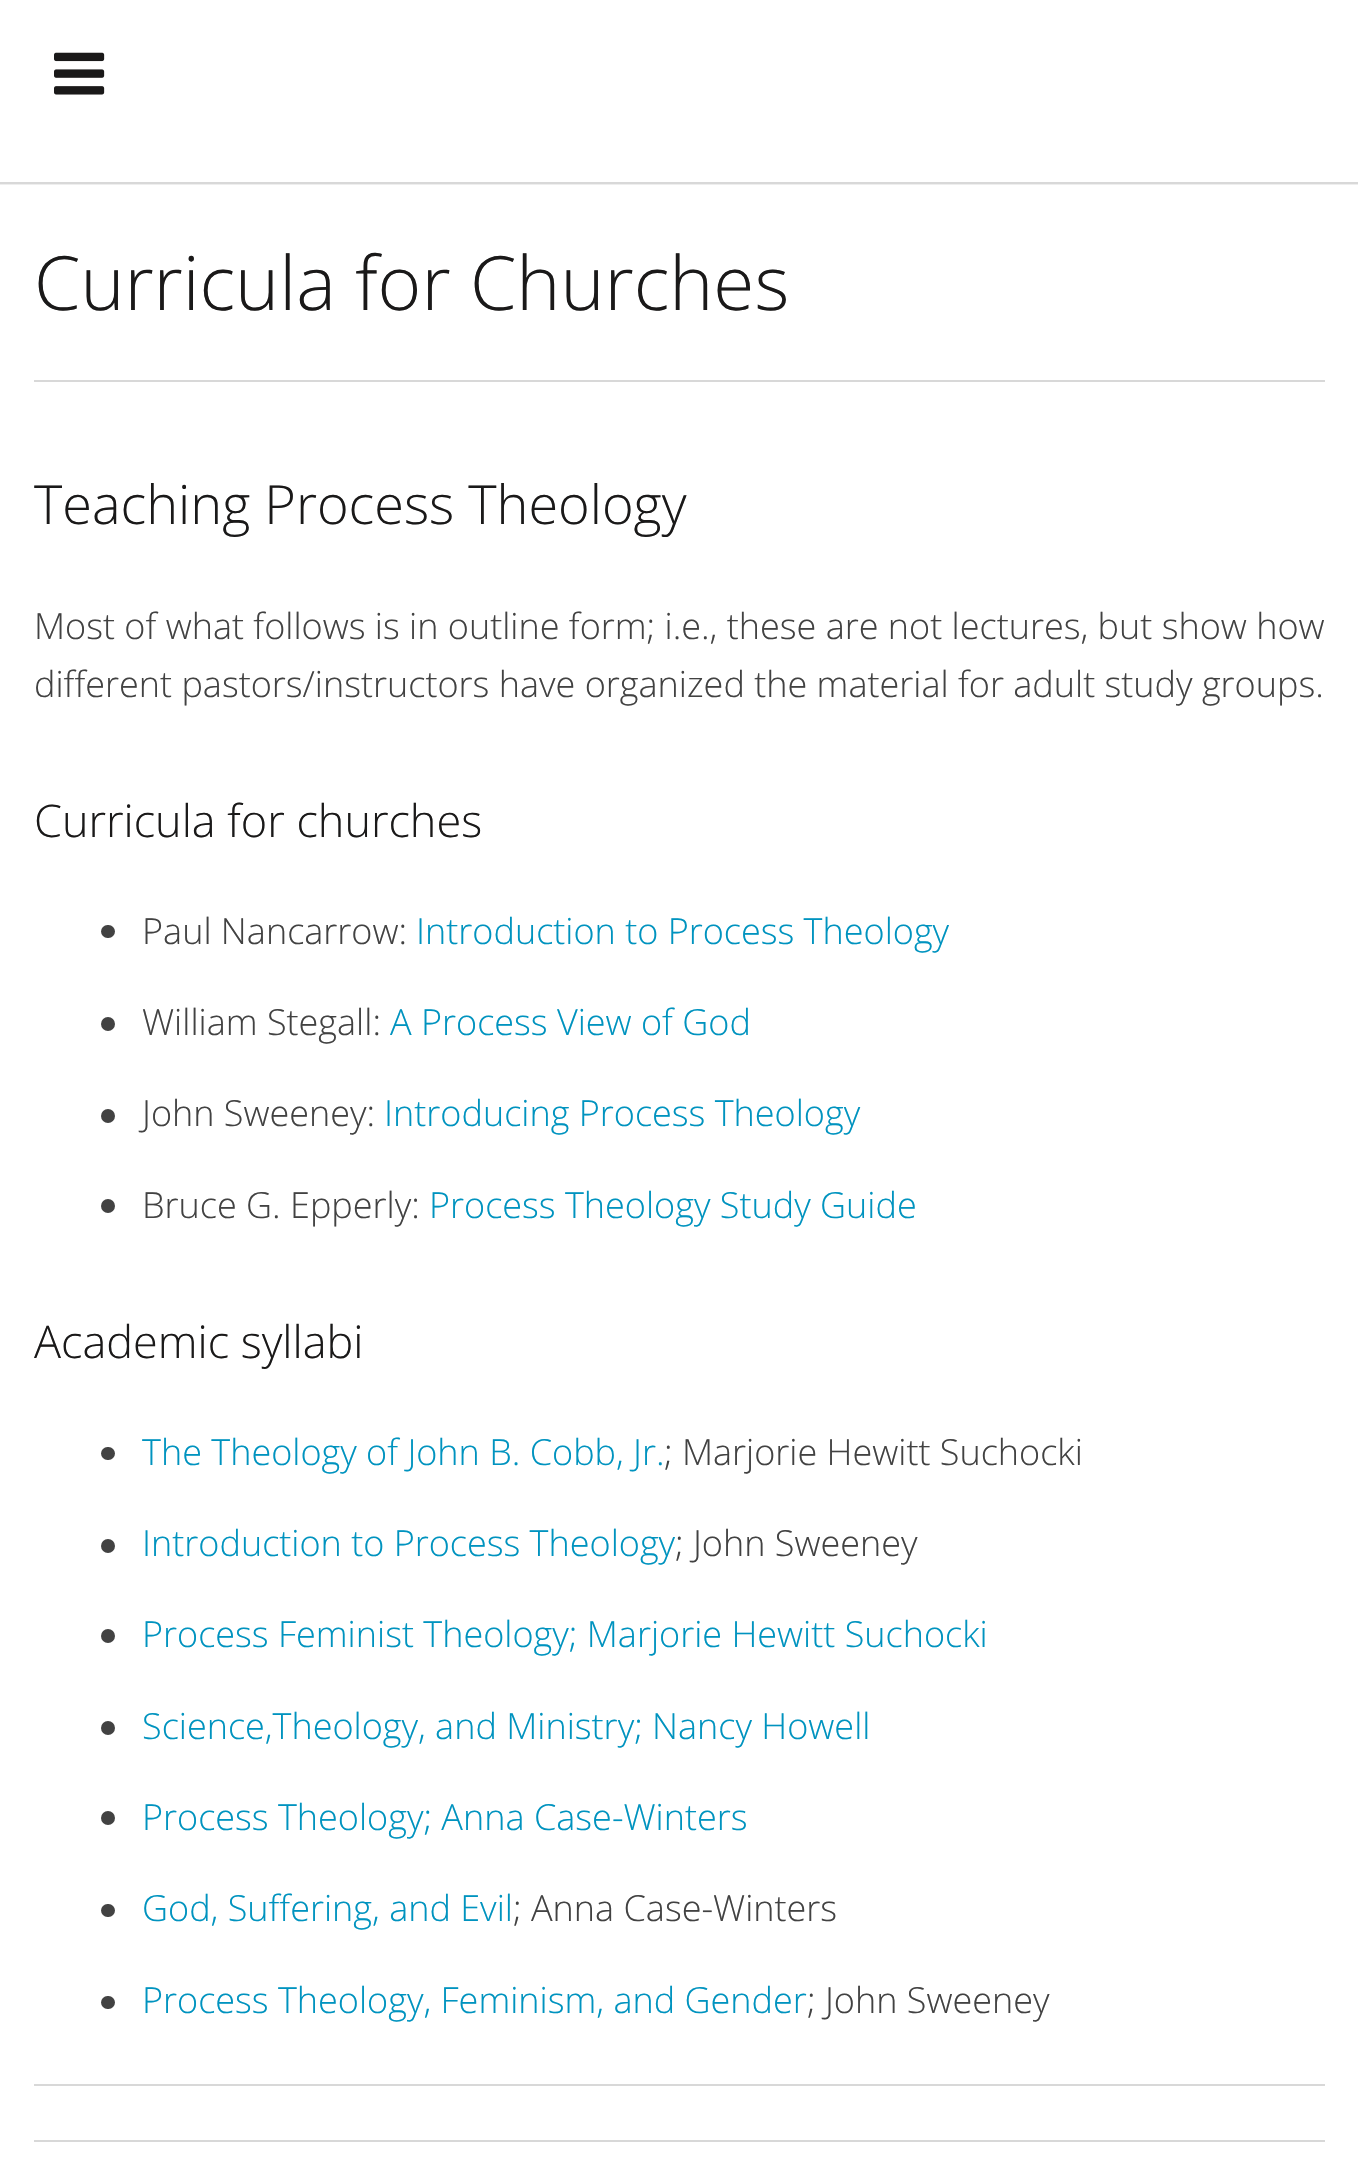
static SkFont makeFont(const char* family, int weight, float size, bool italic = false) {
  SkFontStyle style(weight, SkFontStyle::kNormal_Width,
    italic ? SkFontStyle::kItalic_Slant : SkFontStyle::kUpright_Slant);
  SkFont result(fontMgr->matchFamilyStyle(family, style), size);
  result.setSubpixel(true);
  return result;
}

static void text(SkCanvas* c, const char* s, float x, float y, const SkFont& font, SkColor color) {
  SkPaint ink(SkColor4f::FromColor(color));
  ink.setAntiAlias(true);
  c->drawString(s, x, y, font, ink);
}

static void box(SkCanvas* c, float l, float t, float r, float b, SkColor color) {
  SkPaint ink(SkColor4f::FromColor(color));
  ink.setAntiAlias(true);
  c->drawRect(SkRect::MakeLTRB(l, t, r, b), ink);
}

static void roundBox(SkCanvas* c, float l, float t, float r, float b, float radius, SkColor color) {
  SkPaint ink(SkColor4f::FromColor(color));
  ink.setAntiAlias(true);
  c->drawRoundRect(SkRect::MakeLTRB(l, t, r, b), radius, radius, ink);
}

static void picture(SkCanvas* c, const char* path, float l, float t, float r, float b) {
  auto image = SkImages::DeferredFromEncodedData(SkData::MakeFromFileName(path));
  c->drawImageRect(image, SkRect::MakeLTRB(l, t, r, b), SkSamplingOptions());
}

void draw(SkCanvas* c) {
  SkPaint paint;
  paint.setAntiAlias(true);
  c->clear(0xffeeeeee);
  box(c, 0, 182, 1358, 184, 0xffd8d8d8);
  box(c, 0, 0, 1358, 182, 0xffffffff);
  picture(c, "img_01.png", 54, 52, 105, 95);
  box(c, 0, 185, 1358, 2167, 0xffffffff);
  box(c, 34, 2140, 1325, 2142, 0xffd8d8d8);
  SkFont face1 = makeFont("Open Sans", 300, 74.75f);
  text(c, "Curricula for Churches", 34, 310, face1, 0xff1a1919);
  box(c, 34, 380, 1325, 382, 0xffd8d8d8);
  SkFont face2 = makeFont("Open Sans", 300, 54);
  text(c, "Teaching Process Theology", 34, 524, face2, 0xff1a1919);
  box(c, 34, 2084, 1325, 2086, 0xffd8d8d8);
  SkFont face3 = makeFont("Open Sans", 300, 36);
  text(c, "Most of what follows is in outline form; i.e., these are not lectures, but show how", 34, 639, face3, 0xff424242);
  text(c, "different pastors/instructors have organized the material for adult study groups.", 34, 697, face3, 0xff424242);
  SkFont face4 = makeFont("Open Sans", 300, 45);
  text(c, "Curricula for churches", 34, 837, face4, 0xff1a1919);
  roundBox(c, 101, 925, 115, 938, 6.5f, 0xff424242);
  text(c, "Paul Nancarrow:", 142, 944, face3, 0xff424242);
  text(c, "Introduction to Process Theology", 416, 944, face3, 0xff0093bf);
  paint.setColor(0xff424242);
  c->drawCircle(108, 1024, 7, paint);
  text(c, "William Stegall:", 142, 1035, face3, 0xff424242);
  text(c, "A Process View of God", 390, 1035, face3, 0xff0093bf);
  c->drawCircle(108, 1116, 7, paint);
  text(c, "John Sweeney:", 142, 1126, face3, 0xff424242);
  text(c, "Introducing Process Theology", 384, 1126, face3, 0xff0093bf);
  c->drawCircle(108, 1206, 7, paint);
  text(c, "Bruce G. Epperly:", 142, 1218, face3, 0xff424242);
  text(c, "Process Theology Study Guide", 429, 1218, face3, 0xff0093bf);
  text(c, "Academic syllabi", 34, 1358, face4, 0xff1a1919);
  roundBox(c, 101, 1447, 115, 1460, 6.5f, 0xff424242);
  text(c, "The Theology of John B. Cobb, Jr.", 142, 1465, face3, 0xff0093bf);
  text(c, "; Marjorie Hewitt Suchocki", 664, 1465, face3, 0xff424242);
  c->drawCircle(108, 1546, 7, paint);
  text(c, "Introduction to Process Theology", 142, 1556, face3, 0xff0093bf);
  text(c, "; John Sweeney", 675, 1556, face3, 0xff424242);
  c->drawCircle(108, 1636, 7, paint);
  text(c, "Process Feminist Theology; Marjorie Hewitt Suchocki", 142, 1647, face3, 0xff0093bf);
  c->drawCircle(108, 1728, 7, paint);
  text(c, "Science,Theology, and Ministry; Nancy Howell", 142, 1739, face3, 0xff0093bf);
  c->drawCircle(108, 1818, 7, paint);
  text(c, "Process Theology; Anna Case-Winters", 142, 1830, face3, 0xff0093bf);
  roundBox(c, 101, 1904, 115, 1917, 6.5f, 0xff424242);
  text(c, "God, Suffering, and Evil", 142, 1921, face3, 0xff0093bf);
  text(c, "; Anna Case-Winters", 513, 1921, face3, 0xff424242);
  roundBox(c, 101, 1996, 115, 2009, 6.5f, 0xff424242);
  text(c, "Process Theology, Feminism, and Gender", 142, 2013, face3, 0xff0093bf);
  text(c, "; John Sweeney", 807, 2013, face3, 0xff424242);
}
